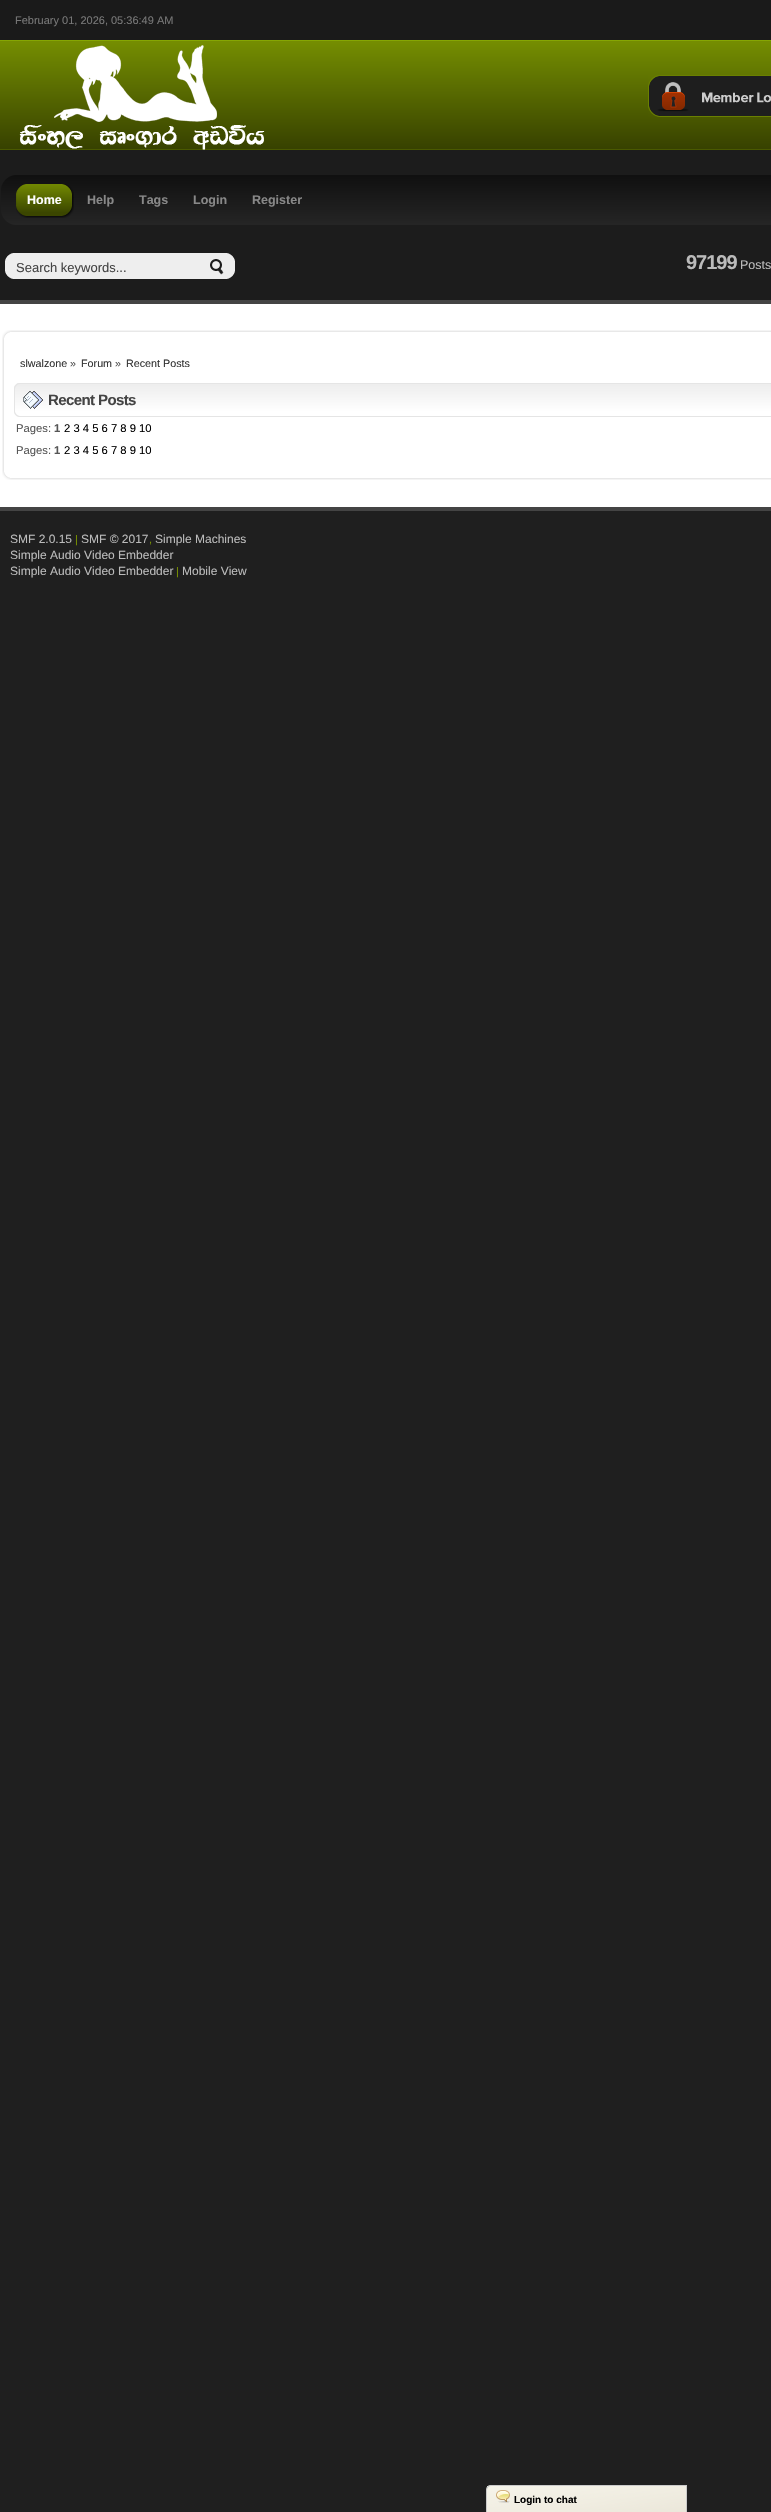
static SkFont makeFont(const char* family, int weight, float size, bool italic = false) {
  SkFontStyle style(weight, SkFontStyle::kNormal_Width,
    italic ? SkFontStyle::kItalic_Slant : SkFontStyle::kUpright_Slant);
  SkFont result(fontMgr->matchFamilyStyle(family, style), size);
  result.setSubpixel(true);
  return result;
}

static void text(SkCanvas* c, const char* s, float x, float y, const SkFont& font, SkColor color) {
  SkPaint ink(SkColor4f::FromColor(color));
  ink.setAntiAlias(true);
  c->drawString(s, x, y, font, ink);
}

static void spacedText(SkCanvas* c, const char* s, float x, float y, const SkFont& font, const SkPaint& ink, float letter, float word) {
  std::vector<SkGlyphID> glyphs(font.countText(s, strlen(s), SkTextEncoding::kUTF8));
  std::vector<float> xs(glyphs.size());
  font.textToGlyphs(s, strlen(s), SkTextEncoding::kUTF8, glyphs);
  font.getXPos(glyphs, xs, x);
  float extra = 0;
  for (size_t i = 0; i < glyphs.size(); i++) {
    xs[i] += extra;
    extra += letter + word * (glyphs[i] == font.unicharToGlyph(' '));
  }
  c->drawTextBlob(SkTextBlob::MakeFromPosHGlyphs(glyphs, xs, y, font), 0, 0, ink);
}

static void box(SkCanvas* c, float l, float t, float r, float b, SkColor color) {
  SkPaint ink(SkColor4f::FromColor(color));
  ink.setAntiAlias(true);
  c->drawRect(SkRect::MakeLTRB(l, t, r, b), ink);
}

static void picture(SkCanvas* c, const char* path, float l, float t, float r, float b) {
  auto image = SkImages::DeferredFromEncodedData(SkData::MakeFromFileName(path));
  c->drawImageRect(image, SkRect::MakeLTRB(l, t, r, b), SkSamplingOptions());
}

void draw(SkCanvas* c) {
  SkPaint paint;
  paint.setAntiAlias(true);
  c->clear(0xff1f1f1f);
  box(c, 0, 0, 771, 40, 0xff1a1a1a);
  SkFont face1 = makeFont("Liberation Sans", 400, 11);
  text(c, "February 01, 2026, 05:36:49 AM", 15, 24, face1, 0xff777777);
  picture(c, "img_01.png", 0, 40, 771, 150);
  picture(c, "img_02.png", 19, 45, 265, 150);
  picture(c, "img_03.png", 648, 75, 771, 117);
  box(c, 0, 150, 771, 300, 0xff1c1c1c);
  picture(c, "img_04.png", 1, 175, 15, 225);
  picture(c, "img_05.png", 15, 175, 771, 225);
  picture(c, "img_06.png", 16, 184, 62, 218);
  picture(c, "img_07.png", 62, 184, 74, 218);
  SkFont face2 = makeFont("Liberation Sans", 700, 12.5f);
  text(c, "Home", 27, 204, face2, 0xffffffff);
  text(c, "Help", 87, 204, face2, 0xff888888);
  text(c, "Tags", 139, 204, face2, 0xff888888);
  text(c, "Login", 193, 204, face2, 0xff888888);
  text(c, "Register", 252, 204, face2, 0xff888888);
  picture(c, "img_08.png", 5, 253, 235, 279);
  SkFont face3 = makeFont("Liberation Sans", 400, 13);
  text(c, "Search keywords...", 16, 272, face3, 0xff444444);
  SkFont face4 = makeFont("Liberation Sans", 700, 20);
  paint.setColor(0xffbbbbbb);
  spacedText(c, "97199", 686, 269, face4, paint, -1, 0);
  SkFont face5 = makeFont("Liberation Sans", 400, 12.5f);
  text(c, "Posts", 740, 269, face5, 0xffbbbbbb);
  box(c, 0, 304, 771, 507, 0xffffffff);
  box(c, 0, 300, 771, 304, 0xff444444);
  box(c, 0, 507, 771, 511, 0xff444444);
  picture(c, "img_09.png", 2, 330, 12, 341);
  picture(c, "img_10.png", 12, 330, 771, 332);
  picture(c, "img_11.png", 2, 341, 4, 470);
  SkFont face6 = makeFont("Liberation Sans", 400, 10.75f);
  text(c, "slwalzone", 20, 367, face6, 0xff333333);
  text(c, "»", 70, 367, face6, 0xff555555);
  text(c, "Forum", 81, 367, face6, 0xff333333);
  text(c, "»", 115, 367, face6, 0xff555555);
  text(c, "Recent Posts", 126, 367, face6, 0xff333333);
  picture(c, "img_12.png", 14, 383, 771, 417);
  picture(c, "img_13.png", 23, 391, 43, 409);
  SkFont face7 = makeFont("Liberation Sans", 700, 15);
  paint.setColor(0xff444444);
  spacedText(c, "Recent Posts", 48, 405, face7, paint, -0.6f, 0);
  SkFont face8 = makeFont("Liberation Sans", 400, 11.25f);
  text(c, "Pages:", 16, 432, face8, 0xff555555);
  SkFont face9 = makeFont("Liberation Sans", 700, 11.25f);
  text(c, "1", 54, 432, face9, 0xff555555);
  text(c, "2 3 4 5 6 7 8 9 10", 64, 432, face8, 0xff000000);
  text(c, "Pages:", 16, 454, face8, 0xff555555);
  text(c, "1", 54, 454, face9, 0xff555555);
  text(c, "2 3 4 5 6 7 8 9 10", 64, 454, face8, 0xff000000);
  picture(c, "img_14.png", 2, 470, 12, 480);
  picture(c, "img_15.png", 12, 478, 771, 480);
  SkFont face10 = makeFont("Liberation Sans", 400, 12);
  text(c, "SMF 2.0.15", 10, 543, face10, 0xffbbbbbb);
  text(c, "|", 75, 543, face1, 0xff7b9500);
  text(c, "SMF © 2017", 81, 543, face10, 0xffbbbbbb);
  text(c, ",", 149, 543, face1, 0xff7b9500);
  text(c, "Simple Machines", 155, 543, face10, 0xffbbbbbb);
  text(c, "Simple Audio Video Embedder", 10, 559, face10, 0xffbbbbbb);
  text(c, "Simple Audio Video Embedder", 10, 575, face10, 0xffbbbbbb);
  text(c, "|", 176, 575, face1, 0xff7b9500);
  text(c, "Mobile View", 182, 575, face10, 0xffbbbbbb);
  {
    const SkColor colors[] = {0xfff6f4ea, 0xffebe7da};
    const float stops[] = {0, 1};
    const SkPoint ends[] = {{583, 2473}, {590, 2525}};
    paint.setShader(SkGradientShader::MakeLinear(ends, colors, stops, 2, SkTileMode::kClamp));
    paint.setAlpha(255);
  }
  c->drawRect(SkRect::MakeLTRB(487, 2486, 686, 2512), paint);
  paint.setShader(nullptr);
  paint.setColor(0xffcacaca);
  c->drawPath(SkPathBuilder(SkPathFillType::kEvenOdd).moveTo(491, 2485).lineTo(687, 2485).lineTo(687, 2512).lineTo(486, 2512).lineTo(486, 2490).cubicTo(486, 2487, 488, 2485, 491, 2485).close().moveTo(491, 2486).lineTo(686, 2486).lineTo(686, 2512).lineTo(487, 2512).lineTo(487, 2490).cubicTo(487, 2488, 489, 2486, 491, 2486).close().detach(), paint);
  picture(c, "img_16.png", 496, 2490, 510, 2503);
  SkFont face11 = makeFont("Liberation Sans", 700, 10);
  text(c, "Login to chat", 514, 2503, face11, 0xff000000);
}
